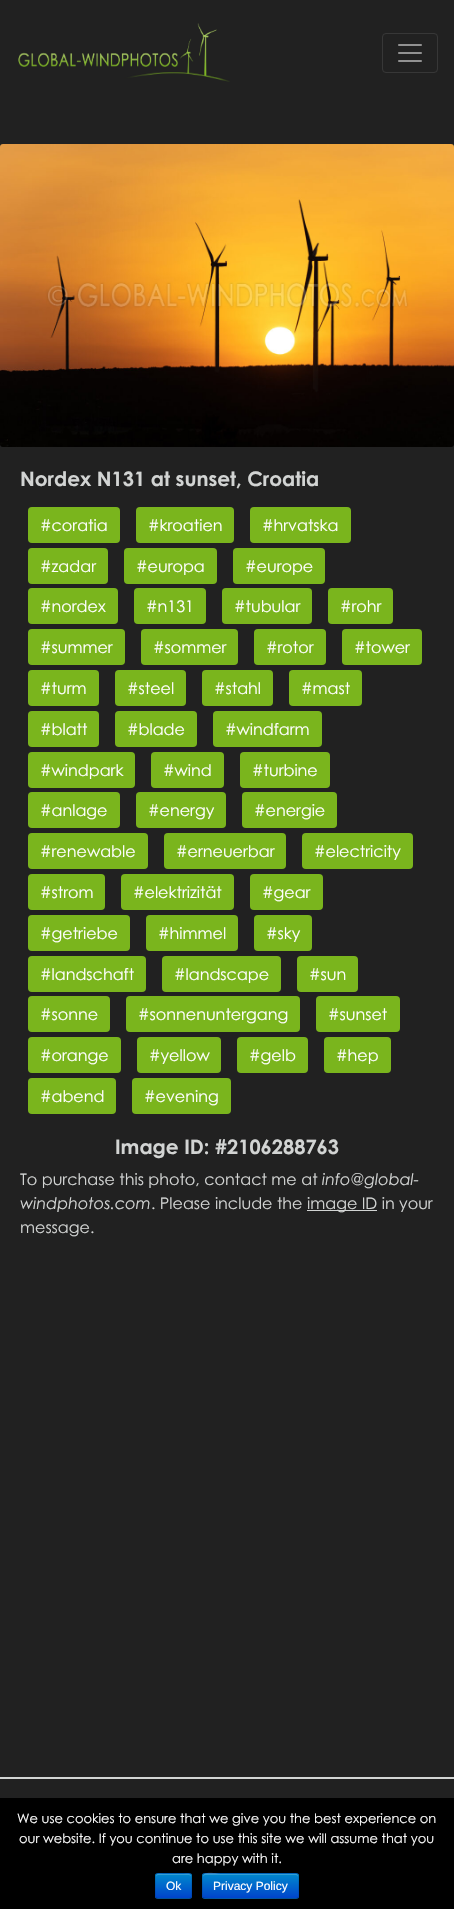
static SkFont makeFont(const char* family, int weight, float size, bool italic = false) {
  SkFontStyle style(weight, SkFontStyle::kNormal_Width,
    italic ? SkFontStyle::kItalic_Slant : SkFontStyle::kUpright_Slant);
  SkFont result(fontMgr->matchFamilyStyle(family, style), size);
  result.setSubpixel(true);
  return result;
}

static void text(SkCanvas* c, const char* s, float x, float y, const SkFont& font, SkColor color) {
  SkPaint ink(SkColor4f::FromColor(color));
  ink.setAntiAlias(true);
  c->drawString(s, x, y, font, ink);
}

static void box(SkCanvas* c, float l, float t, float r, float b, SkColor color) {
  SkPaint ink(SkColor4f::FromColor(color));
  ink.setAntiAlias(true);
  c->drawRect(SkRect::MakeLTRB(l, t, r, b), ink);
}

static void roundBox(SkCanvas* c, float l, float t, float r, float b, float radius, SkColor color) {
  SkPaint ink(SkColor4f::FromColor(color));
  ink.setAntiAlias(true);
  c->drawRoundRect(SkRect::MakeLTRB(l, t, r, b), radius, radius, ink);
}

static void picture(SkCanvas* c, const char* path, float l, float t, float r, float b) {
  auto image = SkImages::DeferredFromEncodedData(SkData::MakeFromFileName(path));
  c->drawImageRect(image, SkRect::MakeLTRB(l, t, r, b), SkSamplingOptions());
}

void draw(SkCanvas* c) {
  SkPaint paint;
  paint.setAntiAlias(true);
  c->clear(0xff212121);
  picture(c, "img_01.png", 18, 23, 230, 82);
  paint.setStyle(SkPaint::kStroke_Style);
  paint.setStrokeWidth(1);
  paint.setColor(0xff373737);
  c->drawRoundRect(SkRect::MakeLTRB(382.5f, 33.5f, 437.5f, 72.5f), 3.5f, 3.5f, paint);
  picture(c, "img_02.png", 398, 44, 422, 62);
  picture(c, "img_03.png", 0, 144, 454, 447);
  SkFont face1 = makeFont("Century Gothic", 700, 20);
  text(c, "Nordex N131 at sunset, Croatia", 20, 486, face1, 0xffd2d4d3);
  roundBox(c, 28, 507, 120, 543, 4, 0xff7ab51d);
  SkFont face2 = makeFont("Century Gothic", 400, 16);
  text(c, "#coratia", 40, 531, face2, 0xffffffff);
  roundBox(c, 136, 507, 234, 543, 4, 0xff7ab51d);
  text(c, "#kroatien", 148, 531, face2, 0xffffffff);
  roundBox(c, 250, 507, 351, 543, 4, 0xff7ab51d);
  text(c, "#hrvatska", 262, 531, face2, 0xffffffff);
  roundBox(c, 28, 548, 108, 584, 4, 0xff7ab51d);
  text(c, "#zadar", 40, 572, face2, 0xffffffff);
  roundBox(c, 124, 548, 217, 584, 4, 0xff7ab51d);
  text(c, "#europa", 136, 572, face2, 0xffffffff);
  roundBox(c, 233, 548, 325, 584, 4, 0xff7ab51d);
  text(c, "#europe", 245, 572, face2, 0xffffffff);
  roundBox(c, 28, 588, 118, 624, 4, 0xff7ab51d);
  text(c, "#nordex", 40, 612, face2, 0xffffffff);
  roundBox(c, 134, 588, 206, 624, 4, 0xff7ab51d);
  text(c, "#n131", 146, 612, face2, 0xffffffff);
  roundBox(c, 222, 588, 312, 624, 4, 0xff7ab51d);
  text(c, "#tubular", 234, 612, face2, 0xffffffff);
  roundBox(c, 328, 588, 393, 624, 4, 0xff7ab51d);
  text(c, "#rohr", 340, 612, face2, 0xffffffff);
  roundBox(c, 28, 629, 125, 665, 4, 0xff7ab51d);
  text(c, "#summer", 40, 653, face2, 0xffffffff);
  roundBox(c, 141, 629, 238, 665, 4, 0xff7ab51d);
  text(c, "#sommer", 153, 653, face2, 0xffffffff);
  roundBox(c, 254, 629, 326, 665, 4, 0xff7ab51d);
  text(c, "#rotor", 266, 653, face2, 0xffffffff);
  roundBox(c, 342, 629, 422, 665, 4, 0xff7ab51d);
  text(c, "#tower", 354, 653, face2, 0xffffffff);
  roundBox(c, 28, 670, 99, 706, 4, 0xff7ab51d);
  text(c, "#turm", 40, 694, face2, 0xffffffff);
  roundBox(c, 115, 670, 186, 706, 4, 0xff7ab51d);
  text(c, "#steel", 127, 694, face2, 0xffffffff);
  roundBox(c, 202, 670, 273, 706, 4, 0xff7ab51d);
  text(c, "#stahl", 214, 694, face2, 0xffffffff);
  roundBox(c, 289, 670, 362, 706, 4, 0xff7ab51d);
  text(c, "#mast", 301, 694, face2, 0xffffffff);
  roundBox(c, 28, 711, 99, 747, 4, 0xff7ab51d);
  text(c, "#blatt", 40, 735, face2, 0xffffffff);
  roundBox(c, 115, 711, 197, 747, 4, 0xff7ab51d);
  text(c, "#blade", 127, 735, face2, 0xffffffff);
  roundBox(c, 213, 711, 322, 747, 4, 0xff7ab51d);
  text(c, "#windfarm", 225, 735, face2, 0xffffffff);
  roundBox(c, 28, 752, 135, 788, 4, 0xff7ab51d);
  text(c, "#windpark", 40, 776, face2, 0xffffffff);
  roundBox(c, 151, 752, 224, 788, 4, 0xff7ab51d);
  text(c, "#wind", 163, 776, face2, 0xffffffff);
  roundBox(c, 240, 752, 330, 788, 4, 0xff7ab51d);
  text(c, "#turbine", 252, 776, face2, 0xffffffff);
  roundBox(c, 28, 792, 120, 828, 4, 0xff7ab51d);
  text(c, "#anlage", 40, 816, face2, 0xffffffff);
  roundBox(c, 136, 792, 226, 828, 4, 0xff7ab51d);
  text(c, "#energy", 148, 816, face2, 0xffffffff);
  roundBox(c, 242, 792, 337, 828, 4, 0xff7ab51d);
  text(c, "#energie", 254, 816, face2, 0xffffffff);
  roundBox(c, 28, 833, 148, 869, 4, 0xff7ab51d);
  text(c, "#renewable", 40, 857, face2, 0xffffffff);
  roundBox(c, 164, 833, 286, 869, 4, 0xff7ab51d);
  text(c, "#erneuerbar", 176, 857, face2, 0xffffffff);
  roundBox(c, 302, 833, 413, 869, 4, 0xff7ab51d);
  text(c, "#electricity", 314, 857, face2, 0xffffffff);
  roundBox(c, 28, 874, 105, 910, 4, 0xff7ab51d);
  text(c, "#strom", 40, 898, face2, 0xffffffff);
  roundBox(c, 121, 874, 234, 910, 4, 0xff7ab51d);
  text(c, "#elektrizität", 133, 898, face2, 0xffffffff);
  roundBox(c, 250, 874, 323, 910, 4, 0xff7ab51d);
  text(c, "#gear", 262, 898, face2, 0xffffffff);
  roundBox(c, 28, 915, 130, 951, 4, 0xff7ab51d);
  text(c, "#getriebe", 40, 939, face2, 0xffffffff);
  roundBox(c, 146, 915, 238, 951, 4, 0xff7ab51d);
  text(c, "#himmel", 158, 939, face2, 0xffffffff);
  roundBox(c, 254, 915, 312, 951, 4, 0xff7ab51d);
  text(c, "#sky", 266, 939, face2, 0xffffffff);
  roundBox(c, 28, 956, 146, 992, 4, 0xff7ab51d);
  text(c, "#landschaft", 40, 980, face2, 0xffffffff);
  roundBox(c, 162, 956, 281, 992, 4, 0xff7ab51d);
  text(c, "#landscape", 174, 980, face2, 0xffffffff);
  roundBox(c, 297, 956, 358, 992, 4, 0xff7ab51d);
  text(c, "#sun", 309, 980, face2, 0xffffffff);
  roundBox(c, 28, 996, 110, 1032, 4, 0xff7ab51d);
  text(c, "#sonne", 40, 1020, face2, 0xffffffff);
  roundBox(c, 126, 996, 300, 1032, 4, 0xff7ab51d);
  text(c, "#sonnenuntergang", 138, 1020, face2, 0xffffffff);
  roundBox(c, 316, 996, 400, 1032, 4, 0xff7ab51d);
  text(c, "#sunset", 328, 1020, face2, 0xffffffff);
  roundBox(c, 28, 1037, 121, 1073, 4, 0xff7ab51d);
  text(c, "#orange", 40, 1061, face2, 0xffffffff);
  roundBox(c, 137, 1037, 221, 1073, 4, 0xff7ab51d);
  text(c, "#yellow", 149, 1061, face2, 0xffffffff);
  roundBox(c, 237, 1037, 308, 1073, 4, 0xff7ab51d);
  text(c, "#gelb", 249, 1061, face2, 0xffffffff);
  roundBox(c, 324, 1037, 391, 1073, 4, 0xff7ab51d);
  text(c, "#hep", 336, 1061, face2, 0xffffffff);
  roundBox(c, 28, 1078, 116, 1114, 4, 0xff7ab51d);
  text(c, "#abend", 40, 1102, face2, 0xffffffff);
  roundBox(c, 132, 1078, 231, 1114, 4, 0xff7ab51d);
  text(c, "#evening", 144, 1102, face2, 0xffffffff);
  text(c, "Image ID: #2106288763", 115, 1154, face1, 0xffd2d4d3);
  text(c, "To purchase this photo, contact me at", 20, 1185, face2, 0xffd2d4d3);
  SkFont face3 = makeFont("Century Gothic", 400, 16, true);
  text(c, "info@global-", 322, 1185, face3, 0xffd2d4d3);
  text(c, "windphotos.com", 20, 1209, face3, 0xffd2d4d3);
  text(c, ". Please include the", 151, 1209, face2, 0xffd2d4d3);
  box(c, 307, 1210, 377, 1211, 0xffd2d4d3);
  text(c, "image ID in your", 307, 1209, face2, 0xffd2d4d3);
  text(c, "message.", 20, 1233, face2, 0xffd2d4d3);
  box(c, 0, 1777, 454, 1779, 0xffd2d4d3);
  box(c, 0, 1798, 454, 1909, 0xff000000);
  SkFont face4 = makeFont("Century Gothic", 400, 13);
  text(c, "We use cookies to ensure that we give you the best experience on", 17, 1823, face4, 0xffffffff);
  text(c, "our website. If you continue to use this site we will assume that you", 19, 1843, face4, 0xffffffff);
  text(c, "are happy with it.", 172, 1863, face4, 0xffffffff);
  roundBox(c, 155, 1873, 192, 1899, 3, 0xff006dcc);
  c->save();
  c->clipPath(SkPathBuilder().moveTo(158, 1873).lineTo(189, 1873).cubicTo(190.5f, 1873, 192, 1874.5f, 192, 1876).lineTo(192, 1896).cubicTo(192, 1897.5f, 190.5f, 1899, 189, 1899).lineTo(158, 1899).cubicTo(156.5f, 1899, 155, 1897.5f, 155, 1896).lineTo(155, 1876).cubicTo(155, 1874.5f, 156.5f, 1873, 158, 1873).close().detach(), true);
  paint.setStyle(SkPaint::kFill_Style);
  {
    const SkColor colors[] = {0xff0088cc, 0xff0044cc};
    const float stops[] = {0, 1};
    const SkPoint ends[] = {{174, 1874}, {174, 1898}};
    paint.setShader(SkGradientShader::MakeLinear(ends, colors, stops, 2, SkTileMode::kClamp));
    paint.setAlpha(255);
  }
  c->drawRect(SkRect::MakeLTRB(155, 1874, 192, 1898), paint);
  c->restore();
  paint.setShader(nullptr);
  paint.setColor(0x33ffffff);
  c->drawPath(SkPathBuilder().moveTo(158, 1875).lineTo(189, 1875).cubicTo(190, 1875, 191, 1876, 191, 1877).cubicTo(191, 1872.5f, 187.5f, 1874, 184, 1874).lineTo(163, 1874).cubicTo(159.5f, 1874, 156, 1872.5f, 156, 1877).cubicTo(156, 1876, 157, 1875, 158, 1875).close().detach(), paint);
  paint.setStyle(SkPaint::kStroke_Style);
  paint.setColor(0x40000000);
  c->drawPath(SkPathBuilder().moveTo(191, 1898).cubicTo(190.5f, 1898, 189.5f, 1898.5f, 189, 1898.5f).lineTo(158, 1898.5f).cubicTo(157.5f, 1898.5f, 156.5f, 1898, 156, 1898).detach(), paint);
  paint.setColor(0x1a000000);
  c->drawPath(SkPathBuilder().moveTo(156, 1898).cubicTo(156, 1897.5f, 155.5f, 1896.5f, 155.5f, 1896).lineTo(155.5f, 1876).cubicTo(155.5f, 1875.5f, 156, 1874.5f, 156, 1874).cubicTo(156.5f, 1874, 157.5f, 1873.5f, 158, 1873.5f).lineTo(189, 1873.5f).cubicTo(189.5f, 1873.5f, 190.5f, 1874, 191, 1874).cubicTo(191, 1874.5f, 191.5f, 1875.5f, 191.5f, 1876).lineTo(191.5f, 1896).cubicTo(191.5f, 1896.5f, 191, 1897.5f, 191, 1898).detach(), paint);
  SkFont face5 = makeFont("Liberation Sans", 400, 12);
  text(c, "Ok", 166, 1890, face5, 0xffffffff);
  roundBox(c, 202, 1873, 299, 1899, 3, 0xff006dcc);
  c->save();
  c->clipPath(SkPathBuilder().moveTo(205, 1873).lineTo(296, 1873).cubicTo(297.5f, 1873, 299, 1874.5f, 299, 1876).lineTo(299, 1896).cubicTo(299, 1897.5f, 297.5f, 1899, 296, 1899).lineTo(205, 1899).cubicTo(203.5f, 1899, 202, 1897.5f, 202, 1896).lineTo(202, 1876).cubicTo(202, 1874.5f, 203.5f, 1873, 205, 1873).close().detach(), true);
  paint.setStyle(SkPaint::kFill_Style);
  {
    const SkColor colors[] = {0xff0088cc, 0xff0044cc};
    const float stops[] = {0, 1};
    const SkPoint ends[] = {{251, 1874}, {251, 1898}};
    paint.setShader(SkGradientShader::MakeLinear(ends, colors, stops, 2, SkTileMode::kClamp));
    paint.setAlpha(255);
  }
  c->drawRect(SkRect::MakeLTRB(202, 1874, 299, 1898), paint);
  c->restore();
  paint.setShader(nullptr);
  paint.setColor(0x33ffffff);
  c->drawPath(SkPathBuilder().moveTo(205, 1875).lineTo(296, 1875).cubicTo(297, 1875, 298, 1876, 298, 1877).cubicTo(298, 1876, 298, 1874, 296, 1874).lineTo(220, 1874).cubicTo(218, 1874, 203, 1870, 203, 1877).cubicTo(203, 1876, 204, 1875, 205, 1875).close().detach(), paint);
  paint.setStyle(SkPaint::kStroke_Style);
  paint.setColor(0x40000000);
  c->drawPath(SkPathBuilder().moveTo(298, 1898).lineTo(296, 1898.5f).lineTo(281, 1898.5f).cubicTo(273, 1898.5f, 205.5f, 1899.5f, 203.5f, 1898).lineTo(203, 1898).detach(), paint);
  paint.setColor(0x1a000000);
  c->drawPath(SkPathBuilder().moveTo(203, 1898).cubicTo(201.5f, 1896, 202.5f, 1891.5f, 202.5f, 1889.5f).cubicTo(202.5f, 1869.5f, 199, 1873.5f, 220, 1873.5f).lineTo(281, 1873.5f).cubicTo(302, 1873.5f, 298.5f, 1869.5f, 298.5f, 1889.5f).cubicTo(298.5f, 1891.5f, 299.5f, 1896, 298, 1898).detach(), paint);
  text(c, "Privacy Policy", 213, 1890, face5, 0xffffffff);
}
